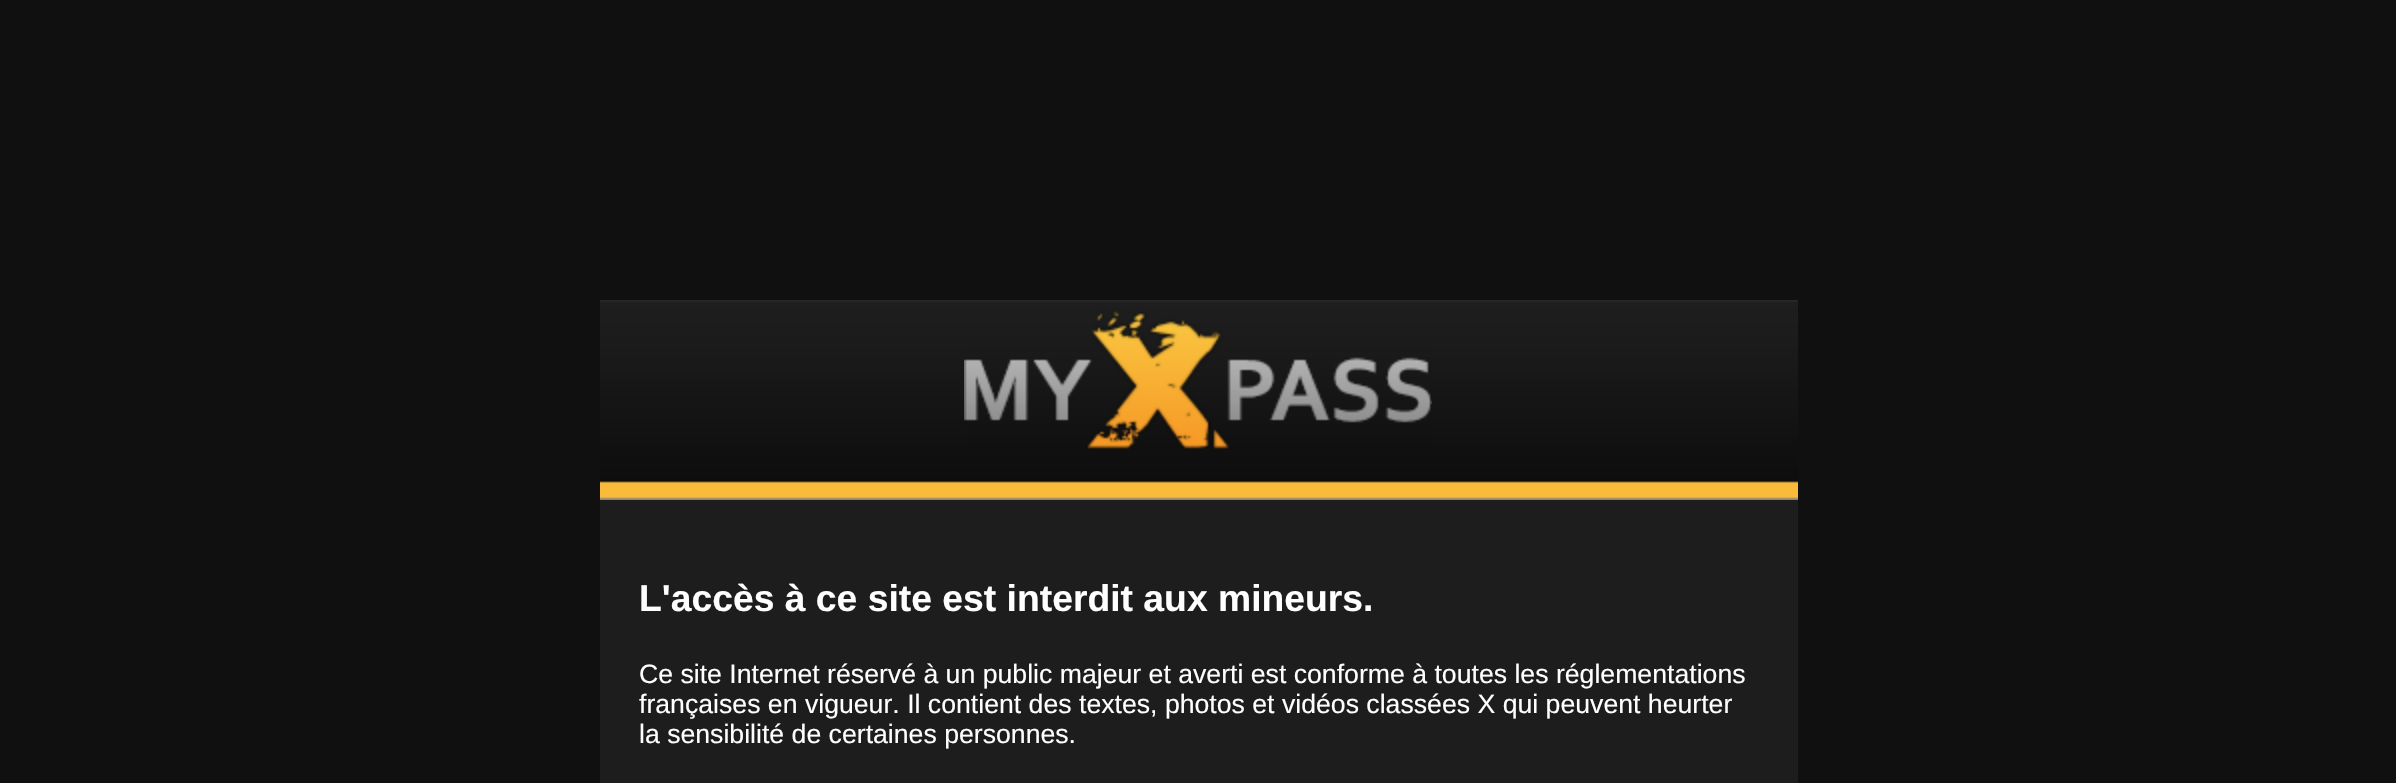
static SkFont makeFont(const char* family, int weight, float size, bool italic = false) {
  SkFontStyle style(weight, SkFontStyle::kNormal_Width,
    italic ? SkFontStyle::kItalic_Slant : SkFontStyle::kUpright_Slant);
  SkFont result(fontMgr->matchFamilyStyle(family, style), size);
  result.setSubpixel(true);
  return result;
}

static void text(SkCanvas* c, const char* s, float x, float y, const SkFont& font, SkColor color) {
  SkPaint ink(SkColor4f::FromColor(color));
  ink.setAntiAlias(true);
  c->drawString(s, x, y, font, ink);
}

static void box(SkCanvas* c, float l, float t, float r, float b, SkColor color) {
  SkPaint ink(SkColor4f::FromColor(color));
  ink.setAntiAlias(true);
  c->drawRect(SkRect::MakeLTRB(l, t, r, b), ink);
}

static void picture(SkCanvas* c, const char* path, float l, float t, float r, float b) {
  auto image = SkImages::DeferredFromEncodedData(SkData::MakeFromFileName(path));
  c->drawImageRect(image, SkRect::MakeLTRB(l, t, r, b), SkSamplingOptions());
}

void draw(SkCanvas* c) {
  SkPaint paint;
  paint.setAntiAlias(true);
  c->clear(0xff101010);
  picture(c, "img_01.png", 600, 300, 1798, 500);
  picture(c, "img_02.png", 964, 311, 1432, 449);
  box(c, 600, 500, 1798, 783, 0xff1d1d1d);
  SkFont face1 = makeFont("Liberation Sans", 700, 37.3f);
  text(c, "L'accès à ce site est interdit aux mineurs.", 639, 611, face1, 0xffffffff);
  SkFont face2 = makeFont("Liberation Sans", 400, 26.65f);
  text(c, "Ce site Internet réservé à un public majeur et averti est conforme à toutes les réglementations", 639, 683, face2, 0xffffffff);
  text(c, "françaises en vigueur. Il contient des textes, photos et vidéos classées X qui peuvent heurter", 639, 713, face2, 0xffffffff);
  text(c, "la sensibilité de certaines personnes.", 639, 743, face2, 0xffffffff);
}
